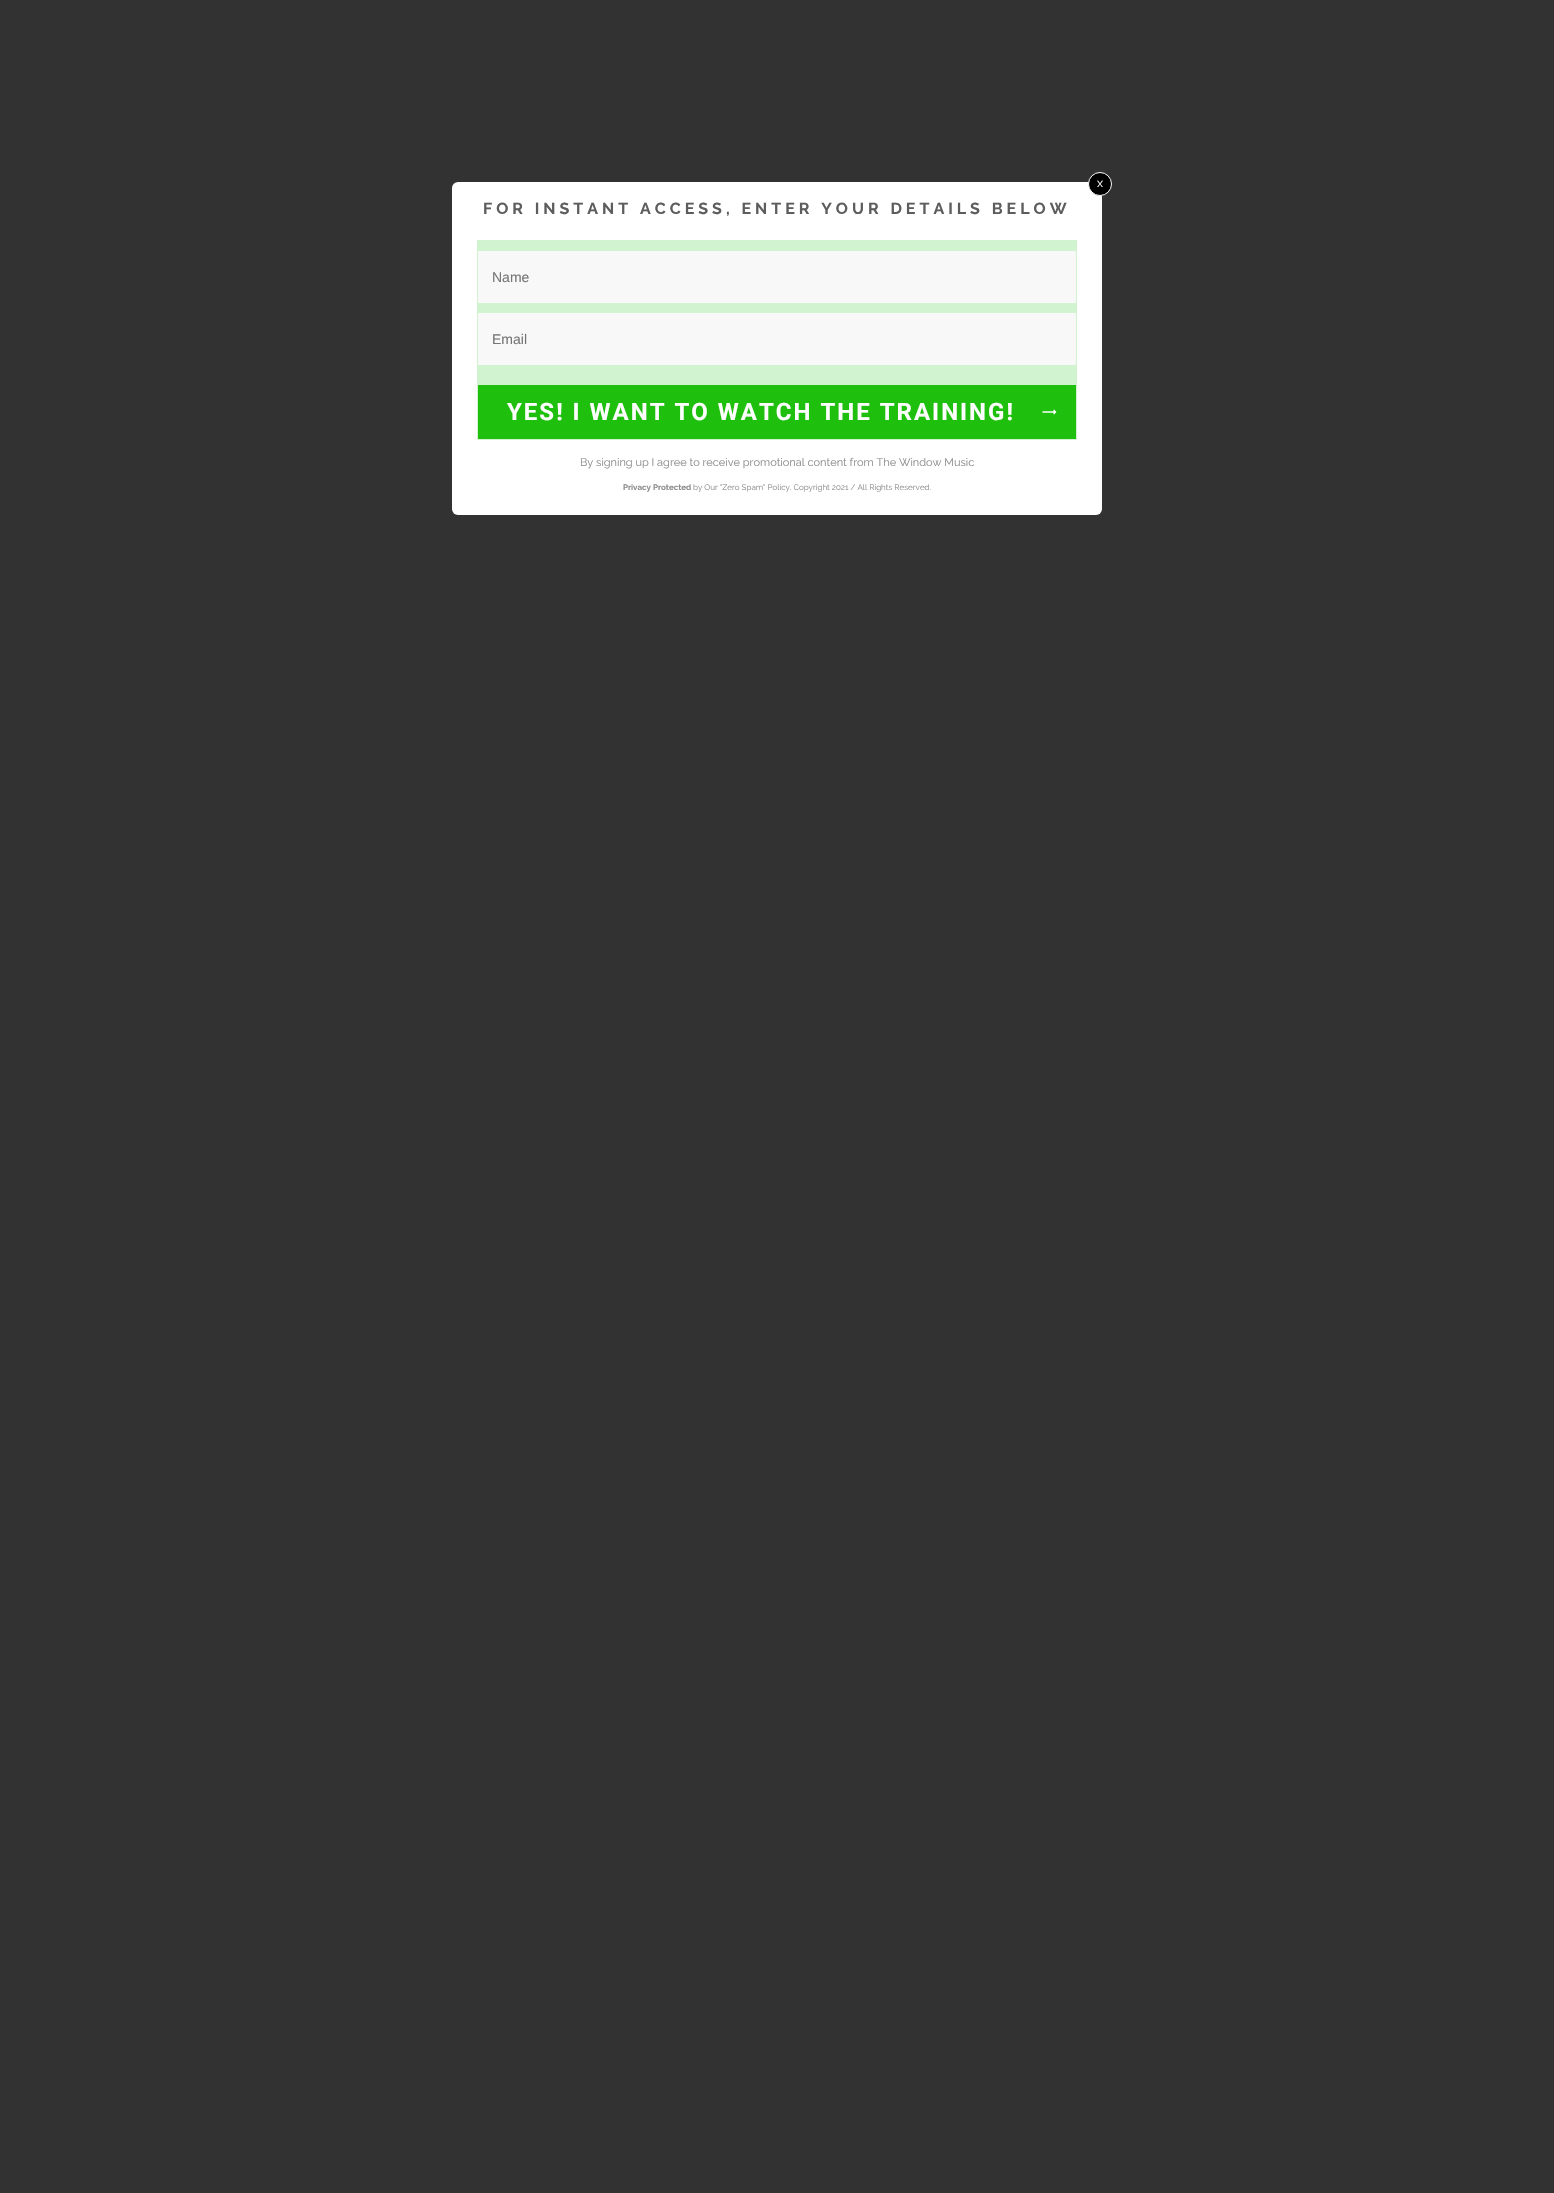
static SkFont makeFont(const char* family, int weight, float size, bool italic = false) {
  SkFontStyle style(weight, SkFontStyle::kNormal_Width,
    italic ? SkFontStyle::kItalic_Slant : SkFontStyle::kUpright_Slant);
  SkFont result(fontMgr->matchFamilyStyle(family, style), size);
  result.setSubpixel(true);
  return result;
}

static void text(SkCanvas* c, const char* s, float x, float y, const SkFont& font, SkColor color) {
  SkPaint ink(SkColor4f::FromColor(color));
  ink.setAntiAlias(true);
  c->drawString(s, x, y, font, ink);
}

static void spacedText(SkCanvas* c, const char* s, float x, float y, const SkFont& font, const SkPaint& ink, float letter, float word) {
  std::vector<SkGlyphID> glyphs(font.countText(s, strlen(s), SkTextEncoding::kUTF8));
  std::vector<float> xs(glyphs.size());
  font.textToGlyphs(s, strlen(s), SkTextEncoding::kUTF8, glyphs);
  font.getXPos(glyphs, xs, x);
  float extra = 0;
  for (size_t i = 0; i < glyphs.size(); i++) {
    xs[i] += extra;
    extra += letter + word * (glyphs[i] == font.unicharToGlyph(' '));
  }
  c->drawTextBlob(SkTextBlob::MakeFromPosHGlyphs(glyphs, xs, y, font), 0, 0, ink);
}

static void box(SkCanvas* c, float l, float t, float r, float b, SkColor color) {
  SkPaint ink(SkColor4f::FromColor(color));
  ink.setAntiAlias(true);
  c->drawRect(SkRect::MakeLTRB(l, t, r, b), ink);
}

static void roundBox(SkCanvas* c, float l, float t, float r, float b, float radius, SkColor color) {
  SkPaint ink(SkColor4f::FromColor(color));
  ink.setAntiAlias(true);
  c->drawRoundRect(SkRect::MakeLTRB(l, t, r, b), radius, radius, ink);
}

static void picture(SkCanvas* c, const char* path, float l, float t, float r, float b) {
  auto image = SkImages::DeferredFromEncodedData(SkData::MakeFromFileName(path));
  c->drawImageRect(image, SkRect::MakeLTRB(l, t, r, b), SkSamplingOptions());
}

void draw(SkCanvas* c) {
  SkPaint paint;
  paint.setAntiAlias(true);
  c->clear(0xff323232);
  roundBox(c, 452, 182, 1102, 515, 6, 0xffffffff);
  paint.setColor(0xff000000);
  c->drawCircle(1100, 184, 11.5f, paint);
  paint.setStyle(SkPaint::kStroke_Style);
  paint.setStrokeWidth(1);
  paint.setColor(0xffffffff);
  c->drawCircle(1100, 184, 11.5f, paint);
  SkFont face1 = makeFont("Raleway", 400, 12);
  text(c, "x", 1097, 187, face1, 0xffffffff);
  SkFont face2 = makeFont("Raleway", 700, 16);
  paint.setStyle(SkPaint::kFill_Style);
  paint.setColor(0xff5d5d5d);
  spacedText(c, "FOR INSTANT ACCESS, ENTER YOUR DETAILS BELOW", 483, 214, face2, paint, 4, 0);
  box(c, 477, 240, 1077, 440, 0xffd2f3cf);
  box(c, 478, 251, 1076, 303, 0xfff8f8f8);
  SkFont face3 = makeFont("Liberation Sans", 400, 14);
  text(c, "Name", 492, 282, face3, 0xff767676);
  box(c, 478, 313, 1076, 365, 0xfff8f8f8);
  text(c, "Email", 492, 344, face3, 0xff767676);
  box(c, 478, 385, 1076, 439, 0xff1ebf0d);
  SkFont face4 = makeFont("Roboto", 700, 24);
  paint.setColor(0xffffffff);
  spacedText(c, "YES! I WANT TO WATCH THE TRAINING!", 507, 420, face4, paint, 2, 0);
  picture(c, "img_01.png", 1042, 409, 1057, 415);
  SkFont face5 = makeFont("Raleway", 400, 11);
  text(c, "By signing up I agree to receive promotional content from The Window Music", 580, 466, face5, 0xff8d8d8d);
  SkFont face6 = makeFont("Raleway", 700, 8);
  text(c, "Privacy Protected", 623, 490, face6, 0xff8d8d8d);
  SkFont face7 = makeFont("Raleway", 400, 8);
  text(c, "by Our \"Zero Spam\" Policy. Copyright 2021 / All Rights Reserved.", 693, 490, face7, 0xff8d8d8d);
}
